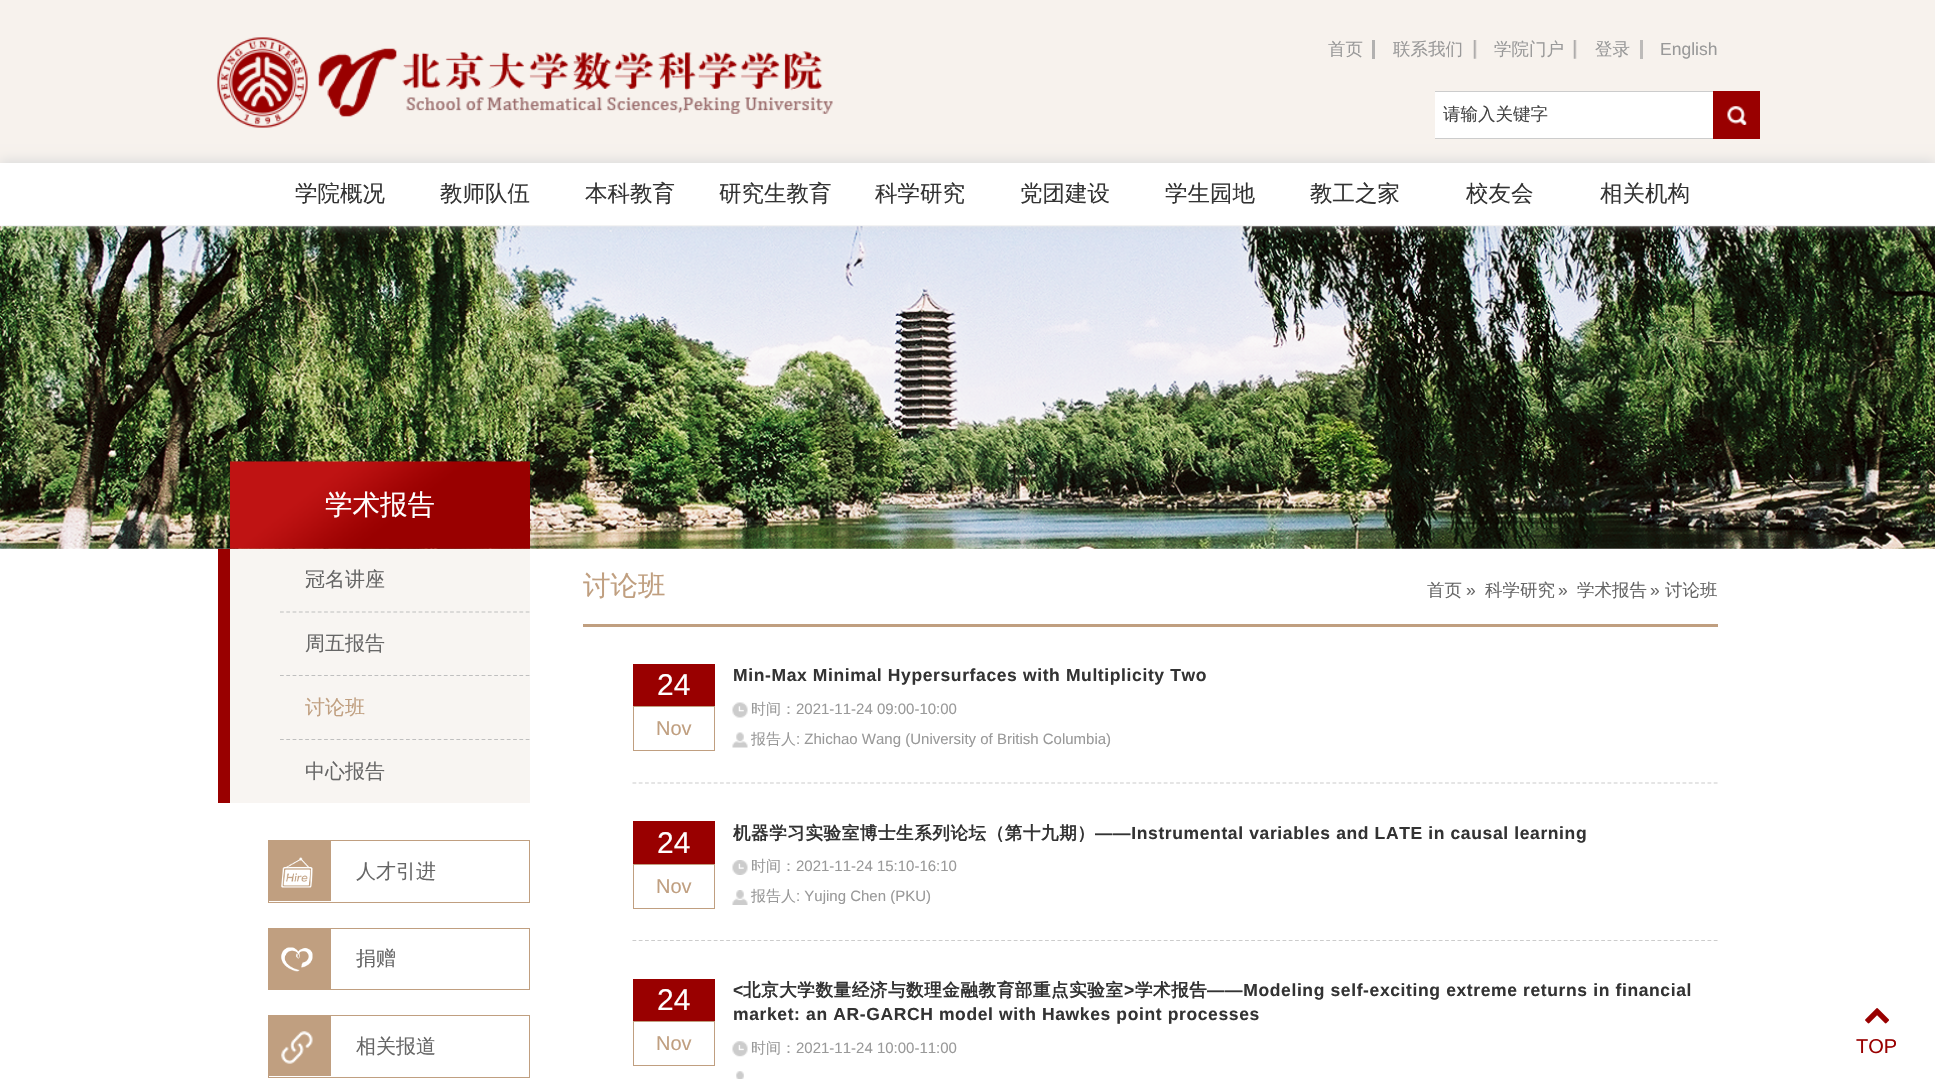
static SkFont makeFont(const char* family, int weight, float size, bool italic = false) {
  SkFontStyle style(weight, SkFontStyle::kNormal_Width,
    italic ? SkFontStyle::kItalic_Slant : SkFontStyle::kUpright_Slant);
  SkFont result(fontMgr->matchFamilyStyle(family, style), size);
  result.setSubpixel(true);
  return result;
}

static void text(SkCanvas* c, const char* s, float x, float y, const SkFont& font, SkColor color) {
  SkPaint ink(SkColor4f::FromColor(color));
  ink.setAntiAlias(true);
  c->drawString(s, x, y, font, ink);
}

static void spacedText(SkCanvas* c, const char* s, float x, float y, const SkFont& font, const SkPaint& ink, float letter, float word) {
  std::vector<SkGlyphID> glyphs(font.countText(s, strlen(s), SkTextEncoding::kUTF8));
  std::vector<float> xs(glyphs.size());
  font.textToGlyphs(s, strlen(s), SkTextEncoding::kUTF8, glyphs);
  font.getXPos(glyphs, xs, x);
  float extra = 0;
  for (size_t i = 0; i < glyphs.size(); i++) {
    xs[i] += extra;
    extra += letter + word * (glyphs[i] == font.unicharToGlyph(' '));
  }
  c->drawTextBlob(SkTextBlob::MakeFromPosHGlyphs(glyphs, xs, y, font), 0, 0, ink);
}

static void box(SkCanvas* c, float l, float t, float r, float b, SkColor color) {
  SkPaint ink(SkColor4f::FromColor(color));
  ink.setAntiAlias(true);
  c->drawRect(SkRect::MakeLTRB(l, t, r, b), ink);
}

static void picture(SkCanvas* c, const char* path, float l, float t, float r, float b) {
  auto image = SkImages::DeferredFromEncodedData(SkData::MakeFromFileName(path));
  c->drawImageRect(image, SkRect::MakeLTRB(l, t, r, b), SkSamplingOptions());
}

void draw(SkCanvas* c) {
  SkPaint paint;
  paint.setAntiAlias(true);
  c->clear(0xffffffff);
  box(c, 0, 0, 1935, 163, 0xfff7f2ed);
  picture(c, "img_01.png", 217, 37, 308, 128);
  picture(c, "img_02.png", 318, 48, 833, 117);
  SkFont face1 = makeFont("WenQuanYi Zen Hei", 500, 17.5f);
  text(c, "首页", 1328, 55, face1, 0xff999999);
  box(c, 1372, 40, 1375, 59, 0xffb2b1b0);
  text(c, "联系我们", 1393, 55, face1, 0xff999999);
  picture(c, "img_03.png", 1473, 40, 1477, 59);
  text(c, "学院门户", 1494, 55, face1, 0xff999999);
  picture(c, "img_03.png", 1573, 40, 1577, 59);
  text(c, "登录", 1595, 55, face1, 0xff999999);
  box(c, 1640, 40, 1643, 59, 0xffbdbbb9);
  SkFont face2 = makeFont("Liberation Sans", 400, 17.5f);
  text(c, "English", 1660, 55, face2, 0xff999999);
  box(c, 1435, 92, 1713, 138, 0xffffffff);
  c->save();
  c->clipRect(SkRect::MakeLTRB(1435, 91, 1760, 139));
  paint.setStyle(SkPaint::kStroke_Style);
  paint.setStrokeWidth(1);
  paint.setColor(0xffcccccc);
  c->drawRect(SkRect::MakeLTRB(1433.5f, 91.5f, 1722.5f, 138.5f), paint);
  c->restore();
  text(c, "请输入关键字", 1443, 120, face1, 0xff444444);
  box(c, 1713, 91, 1760, 139, 0xff990000);
  picture(c, "img_04.png", 1727, 106, 1747, 125);
  picture(c, "img_05.png", 0, 226, 1935, 549);
  paint.setStyle(SkPaint::kFill_Style);
  paint.setColor(0xffdddddd);
  paint.setMaskFilter(SkMaskFilter::MakeBlur(kNormal_SkBlurStyle, 5.5f));
  c->drawRect(SkRect::MakeLTRB(0, 160, 1935, 223), paint);
  paint.setMaskFilter(nullptr);
  box(c, 0, 163, 1935, 225, 0xffffffff);
  SkFont face3 = makeFont("WenQuanYi Zen Hei", 500, 22.5f);
  text(c, "学院概况", 295, 201, face3, 0xff333333);
  text(c, "教师队伍", 440, 201, face3, 0xff333333);
  text(c, "本科教育", 585, 201, face3, 0xff333333);
  text(c, "研究生教育", 719, 201, face3, 0xff333333);
  text(c, "科学研究", 875, 201, face3, 0xff333333);
  text(c, "党团建设", 1020, 201, face3, 0xff333333);
  text(c, "学生园地", 1165, 201, face3, 0xff333333);
  text(c, "教工之家", 1310, 201, face3, 0xff333333);
  text(c, "校友会", 1466, 201, face3, 0xff333333);
  text(c, "相关机构", 1600, 201, face3, 0xff333333);
  picture(c, "img_06.png", 230, 461, 530, 549);
  SkFont face4 = makeFont("WenQuanYi Zen Hei", 500, 27.5f);
  text(c, "学术报告", 325, 514, face4, 0xffffffff);
  box(c, 230, 549, 530, 803, 0xfff8f5f2);
  box(c, 218, 549, 230, 803, 0xff990000);
  c->save();
  c->clipRect(SkRect::MakeLTRB(230, 549, 530, 803));
  paint.setStyle(SkPaint::kStroke_Style);
  paint.setStrokeWidth(1.2f);
  paint.setColor(0xffbfbfbf);
  paint.setPathEffect(SkDashPathEffect::Make({{3.75f, 2.55f}}, 0));
  c->drawPath(SkPathBuilder().moveTo(280, 612).lineTo(574, 612).detach(), paint);
  paint.setPathEffect(nullptr);
  c->restore();
  SkFont face5 = makeFont("WenQuanYi Zen Hei", 500, 20);
  text(c, "冠名讲座", 305, 586, face5, 0xff666666);
  c->save();
  c->clipRect(SkRect::MakeLTRB(230, 549, 530, 803));
  paint.setPathEffect(SkDashPathEffect::Make({{3.75f, 2.55f}}, 0));
  c->drawPath(SkPathBuilder().moveTo(280, 675.5f).lineTo(574, 675.5f).detach(), paint);
  paint.setPathEffect(nullptr);
  c->restore();
  text(c, "周五报告", 305, 650, face5, 0xff666666);
  c->save();
  c->clipRect(SkRect::MakeLTRB(230, 549, 530, 803));
  paint.setPathEffect(SkDashPathEffect::Make({{3.75f, 2.55f}}, 0));
  c->drawPath(SkPathBuilder().moveTo(280, 739.5f).lineTo(574, 739.5f).detach(), paint);
  paint.setPathEffect(nullptr);
  c->restore();
  text(c, "讨论班", 305, 714, face5, 0xffc09f80);
  text(c, "中心报告", 305, 778, face5, 0xff666666);
  paint.setStrokeWidth(1);
  paint.setColor(0xffc09f80);
  c->drawRect(SkRect::MakeLTRB(268.5f, 840.5f, 529.5f, 902.5f), paint);
  box(c, 269, 841, 331, 901, 0xffc09f80);
  picture(c, "img_07.png", 281, 857, 313, 888);
  text(c, "人才引进", 356, 878, face5, 0xff666666);
  c->drawRect(SkRect::MakeLTRB(268.5f, 928.5f, 529.5f, 989.5f), paint);
  box(c, 269, 929, 331, 989, 0xffc09f80);
  picture(c, "img_08.png", 281, 947, 313, 972);
  text(c, "捐赠", 356, 965, face5, 0xff666666);
  c->drawRect(SkRect::MakeLTRB(268.5f, 1015.5f, 529.5f, 1077.5f), paint);
  box(c, 269, 1016, 331, 1076, 0xffc09f80);
  picture(c, "img_09.png", 281, 1031, 313, 1064);
  text(c, "相关报道", 356, 1053, face5, 0xff666666);
  box(c, 583, 624, 1718, 627, 0xffc09f80);
  c->save();
  c->clipRect(SkRect::MakeLTRB(583, 568, 1718, 624));
  text(c, "讨论班", 583, 595, face4, 0xffc09f80);
  c->restore();
  text(c, "首页", 1427, 596, face1, 0xff666666);
  text(c, "»", 1466, 596, face2, 0xff666666);
  text(c, "科学研究", 1485, 596, face1, 0xff666666);
  text(c, "»", 1558, 596, face2, 0xff666666);
  text(c, "学术报告", 1577, 596, face1, 0xff666666);
  text(c, "»", 1650, 596, face2, 0xff666666);
  text(c, "讨论班", 1665, 596, face1, 0xff666666);
  paint.setStrokeWidth(1.2f);
  paint.setColor(0xffcccccc);
  paint.setPathEffect(SkDashPathEffect::Make({{3.75f, 2.5f}}, 0));
  c->drawPath(SkPathBuilder().moveTo(632.5f, 783).lineTo(1717.5f, 783).detach(), paint);
  paint.setPathEffect(nullptr);
  box(c, 633, 664, 715, 706, 0xff990000);
  SkFont face6 = makeFont("Liberation Sans", 400, 30);
  text(c, "24", 657, 695, face6, 0xffffffff);
  paint.setStrokeWidth(1);
  paint.setColor(0xffc09f80);
  c->drawRect(SkRect::MakeLTRB(633.5f, 706.5f, 714.5f, 750.5f), paint);
  SkFont face7 = makeFont("Liberation Sans", 400, 20);
  text(c, "Nov", 656, 735, face7, 0xffc09f80);
  SkFont face8 = makeFont("Liberation Sans", 700, 17.5f);
  paint.setStyle(SkPaint::kFill_Style);
  paint.setColor(0xff333333);
  spacedText(c, "Min-Max Minimal Hypersurfaces with Multiplicity Two", 733, 681, face8, paint, 0.62f, 0);
  picture(c, "img_10.png", 732, 702, 748, 718);
  SkFont face9 = makeFont("WenQuanYi Zen Hei", 500, 15);
  text(c, "时间：", 751, 714, face9, 0xff999999);
  SkFont face10 = makeFont("Liberation Sans", 400, 15);
  text(c, "2021-11-24 09:00-10:00", 796, 714, face10, 0xff999999);
  picture(c, "img_11.png", 732, 732, 748, 748);
  text(c, "报告人", 751, 744, face9, 0xff999999);
  text(c, ": Zhichao Wang (University of British Columbia)", 796, 744, face10, 0xff999999);
  paint.setStyle(SkPaint::kStroke_Style);
  paint.setStrokeWidth(1.2f);
  paint.setColor(0xffcccccc);
  paint.setPathEffect(SkDashPathEffect::Make({{3.75f, 2.5f}}, 0));
  c->drawPath(SkPathBuilder().moveTo(632.5f, 940.5f).lineTo(1717.5f, 940.5f).detach(), paint);
  paint.setPathEffect(nullptr);
  box(c, 633, 821, 715, 864, 0xff990000);
  text(c, "24", 657, 853, face6, 0xffffffff);
  paint.setStrokeWidth(1);
  paint.setColor(0xffc09f80);
  c->drawRect(SkRect::MakeLTRB(633.5f, 864.5f, 714.5f, 908.5f), paint);
  text(c, "Nov", 656, 893, face7, 0xffc09f80);
  SkFont face11 = makeFont("WenQuanYi Zen Hei", 700, 17.5f);
  paint.setStyle(SkPaint::kFill_Style);
  paint.setColor(0xff333333);
  spacedText(c, "机器学习实验室博士生系列论坛（第十九期）", 733, 839, face11, paint, 0.62f, 0);
  spacedText(c, "——Instrumental variables and LATE in causal learning", 1095, 839, face8, paint, 0.62f, 0);
  picture(c, "img_12.png", 732, 860, 748, 875);
  text(c, "时间：", 751, 871, face9, 0xff999999);
  text(c, "2021-11-24 15:10-16:10", 796, 871, face10, 0xff999999);
  picture(c, "img_13.png", 732, 890, 748, 905);
  text(c, "报告人", 751, 901, face9, 0xff999999);
  text(c, ": Yujing Chen (PKU)", 796, 901, face10, 0xff999999);
  box(c, 633, 979, 715, 1021, 0xff990000);
  text(c, "24", 657, 1010, face6, 0xffffffff);
  paint.setStyle(SkPaint::kStroke_Style);
  paint.setColor(0xffc09f80);
  c->drawRect(SkRect::MakeLTRB(633.5f, 1021.5f, 714.5f, 1065.5f), paint);
  text(c, "Nov", 656, 1050, face7, 0xffc09f80);
  paint.setStyle(SkPaint::kFill_Style);
  paint.setColor(0xff333333);
  spacedText(c, "<", 733, 996, face8, paint, 0.62f, 0);
  spacedText(c, "北京大学数量经济与数理金融教育部重点实验室", 743, 996, face11, paint, 0.62f, 0);
  spacedText(c, ">", 1124, 996, face8, paint, 0.62f, 0);
  spacedText(c, "学术报告", 1135, 996, face11, paint, 0.62f, 0);
  spacedText(c, "——Modeling self-exciting extreme returns in financial", 1207, 996, face8, paint, 0.62f, 0);
  spacedText(c, "market: an AR-GARCH model with Hawkes point processes", 733, 1020, face8, paint, 0.62f, 0);
  picture(c, "img_14.png", 732, 1041, 748, 1057);
  text(c, "时间：", 751, 1053, face9, 0xff999999);
  text(c, "2021-11-24 10:00-11:00", 796, 1053, face10, 0xff999999);
  picture(c, "img_15.png", 736, 1071, 744, 1079);
  picture(c, "img_16.png", 1865, 1008, 1889, 1024);
  text(c, "TOP", 1856, 1053, face7, 0xff990000);
}
